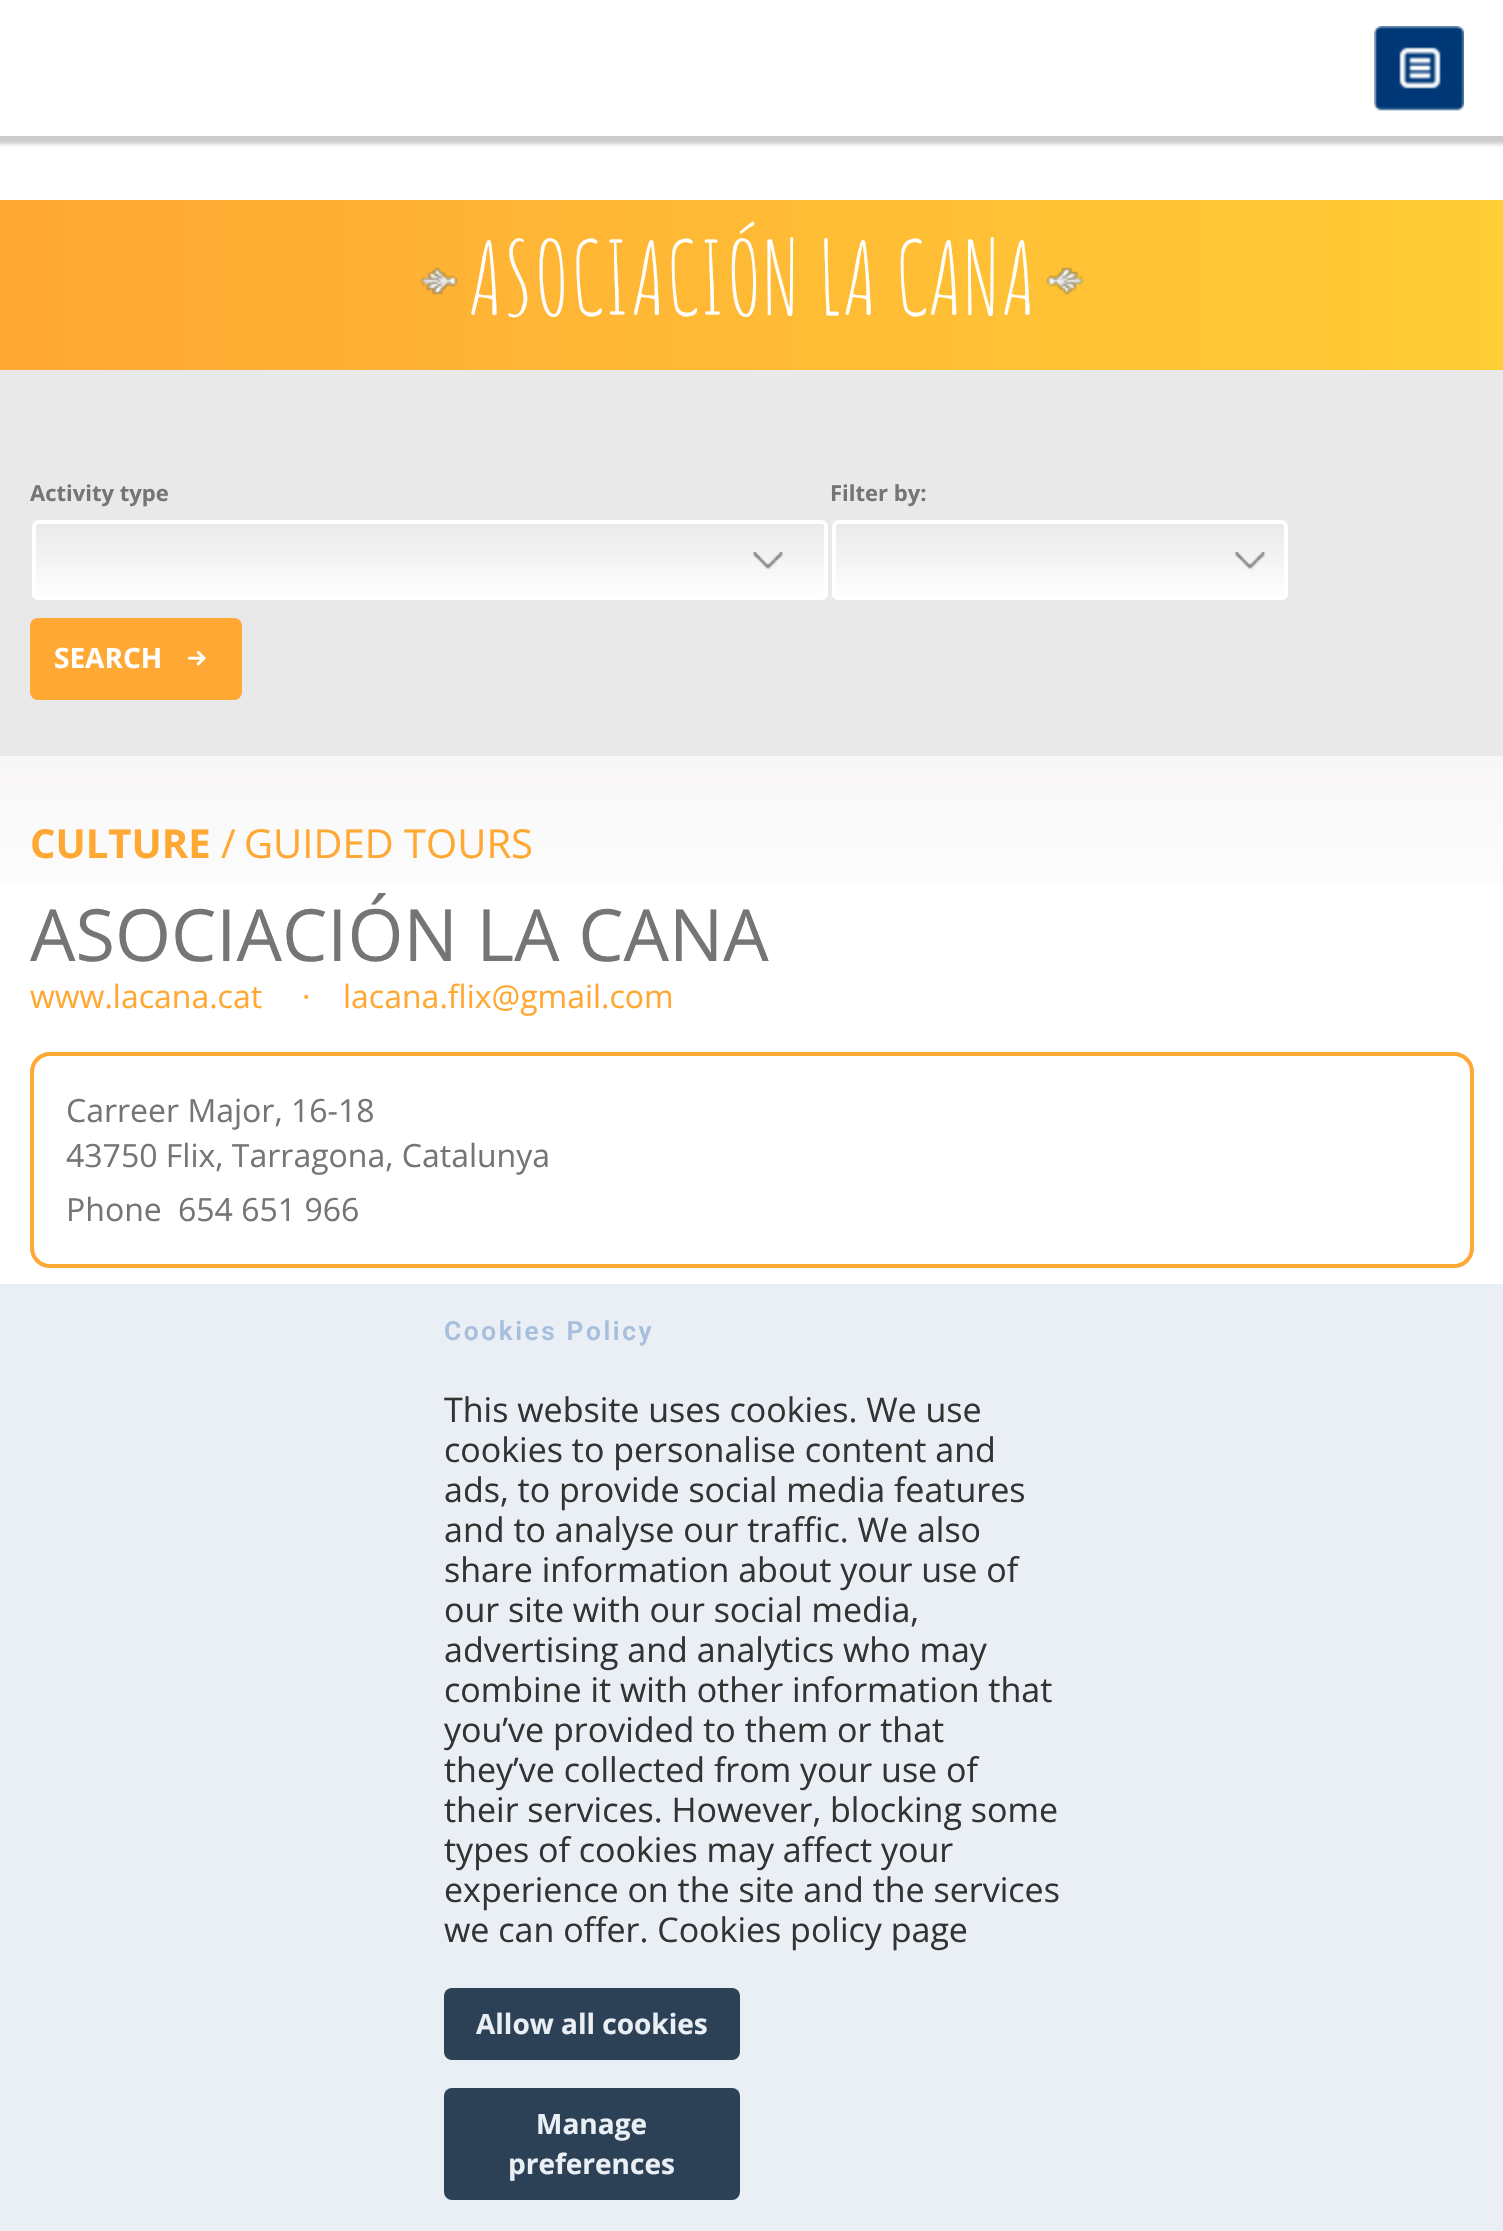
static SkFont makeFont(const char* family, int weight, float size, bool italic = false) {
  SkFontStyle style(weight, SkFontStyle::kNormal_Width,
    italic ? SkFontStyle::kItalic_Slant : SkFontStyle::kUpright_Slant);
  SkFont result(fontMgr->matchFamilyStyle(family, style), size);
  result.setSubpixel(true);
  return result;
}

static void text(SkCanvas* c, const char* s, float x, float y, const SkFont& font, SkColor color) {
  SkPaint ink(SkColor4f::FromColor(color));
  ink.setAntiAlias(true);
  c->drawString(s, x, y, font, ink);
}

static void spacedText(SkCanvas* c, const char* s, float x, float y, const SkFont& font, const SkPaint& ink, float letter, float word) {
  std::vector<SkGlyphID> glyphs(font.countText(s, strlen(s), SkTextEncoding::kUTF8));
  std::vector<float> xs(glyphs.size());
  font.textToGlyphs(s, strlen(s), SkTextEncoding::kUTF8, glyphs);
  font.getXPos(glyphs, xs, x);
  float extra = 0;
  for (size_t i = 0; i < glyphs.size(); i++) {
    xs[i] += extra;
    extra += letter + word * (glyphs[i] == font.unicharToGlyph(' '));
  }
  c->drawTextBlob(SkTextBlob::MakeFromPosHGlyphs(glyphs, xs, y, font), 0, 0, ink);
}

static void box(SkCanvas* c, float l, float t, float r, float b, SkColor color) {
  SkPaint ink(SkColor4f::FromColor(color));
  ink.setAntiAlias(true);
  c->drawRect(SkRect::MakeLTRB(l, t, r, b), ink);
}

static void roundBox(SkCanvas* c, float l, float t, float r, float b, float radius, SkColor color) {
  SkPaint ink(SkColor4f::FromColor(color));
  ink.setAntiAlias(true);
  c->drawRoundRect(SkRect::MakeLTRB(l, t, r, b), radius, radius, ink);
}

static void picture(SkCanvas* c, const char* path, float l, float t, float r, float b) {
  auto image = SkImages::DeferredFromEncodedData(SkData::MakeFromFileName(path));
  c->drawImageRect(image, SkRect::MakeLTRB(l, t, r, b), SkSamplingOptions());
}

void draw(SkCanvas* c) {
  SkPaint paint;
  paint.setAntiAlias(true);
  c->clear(0xffffffff);
  paint.setColor(0x33000000);
  paint.setMaskFilter(SkMaskFilter::MakeBlur(kNormal_SkBlurStyle, 2));
  c->drawRect(SkRect::MakeLTRB(-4, 0, 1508, 144), paint);
  paint.setMaskFilter(nullptr);
  box(c, 0, 0, 1503, 136, 0xffffffff);
  picture(c, "img_01.png", 1374, 26, 1464, 111);
  {
    const SkColor colors[] = {0xffffa834, 0xffffcd36};
    const float stops[] = {0, 1};
    const SkPoint ends[] = {{0, 285}, {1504, 285}};
    paint.setShader(SkGradientShader::MakeLinear(ends, colors, stops, 2, SkTileMode::kClamp));
    paint.setAlpha(255);
  }
  c->drawRect(SkRect::MakeLTRB(0, 200, 1503, 370), paint);
  picture(c, "img_02.png", 420, 267, 458, 295);
  SkFont face1 = makeFont("Amatic SC", 400, 100);
  text(c, "ASOCIACIÓN LA CANA", 468, 315, face1, 0xffffffff);
  picture(c, "img_03.png", 1046, 267, 1084, 295);
  box(c, 0, 370, 1503, 756, 0xffe9e9e9);
  SkFont face2 = makeFont("Open Sans", 700, 22);
  text(c, "Activity type", 30, 501, face2, 0xff757575);
  c->save();
  c->clipPath(SkPathBuilder().moveTo(38, 518).lineTo(822, 518).cubicTo(826.5f, 518, 830, 521.5f, 830, 526).lineTo(830, 594).cubicTo(830, 598.5f, 826.5f, 602, 822, 602).lineTo(38, 602).cubicTo(33.5f, 602, 30, 598.5f, 30, 594).lineTo(30, 526).cubicTo(30, 521.5f, 33.5f, 518, 38, 518).close().detach(), true);
  {
    const SkColor colors[] = {0xffe9e9e9, 0xffffffff};
    const float stops[] = {0, 1};
    const SkPoint ends[] = {{430, 520}, {430, 600}};
    paint.setShader(SkGradientShader::MakeLinear(ends, colors, stops, 2, SkTileMode::kClamp));
    paint.setAlpha(255);
  }
  c->drawRect(SkRect::MakeLTRB(30, 520, 830, 600), paint);
  c->restore();
  paint.setStyle(SkPaint::kStroke_Style);
  paint.setStrokeWidth(4);
  paint.setShader(nullptr);
  paint.setColor(0xffffffff);
  c->drawRoundRect(SkRect::MakeLTRB(34, 522, 826, 598), 4, 4, paint);
  paint.setStrokeWidth(2);
  paint.setColor(0xffe9e9e9);
  c->drawRoundRect(SkRect::MakeLTRB(31, 519, 829, 601), 7, 7, paint);
  picture(c, "img_04.png", 752, 552, 784, 570);
  text(c, "Filter by:", 830, 501, face2, 0xff757575);
  c->save();
  c->clipPath(SkPathBuilder().moveTo(838, 518).lineTo(1282, 518).cubicTo(1286.5f, 518, 1290, 521.5f, 1290, 526).lineTo(1290, 594).cubicTo(1290, 598.5f, 1286.5f, 602, 1282, 602).lineTo(838, 602).cubicTo(833.5f, 602, 830, 598.5f, 830, 594).lineTo(830, 526).cubicTo(830, 521.5f, 833.5f, 518, 838, 518).close().detach(), true);
  paint.setStyle(SkPaint::kFill_Style);
  {
    const SkColor colors[] = {0xffe9e9e9, 0xffffffff};
    const float stops[] = {0, 1};
    const SkPoint ends[] = {{1060, 520}, {1060, 600}};
    paint.setShader(SkGradientShader::MakeLinear(ends, colors, stops, 2, SkTileMode::kClamp));
    paint.setAlpha(255);
  }
  c->drawRect(SkRect::MakeLTRB(830, 520, 1290, 600), paint);
  c->restore();
  paint.setStyle(SkPaint::kStroke_Style);
  paint.setStrokeWidth(4);
  paint.setShader(nullptr);
  paint.setColor(0xffffffff);
  c->drawRoundRect(SkRect::MakeLTRB(834, 522, 1286, 598), 4, 4, paint);
  paint.setStrokeWidth(2);
  paint.setColor(0xffe9e9e9);
  c->drawRoundRect(SkRect::MakeLTRB(831, 519, 1289, 601), 7, 7, paint);
  picture(c, "img_04.png", 1234, 552, 1266, 570);
  roundBox(c, 30, 618, 242, 700, 8, 0xffffa834);
  SkFont face3 = makeFont("Open Sans", 700, 28);
  text(c, "SEARCH", 54, 668, face3, 0xffffffff);
  picture(c, "img_05.png", 188, 650, 206, 666);
  paint.setStyle(SkPaint::kFill_Style);
  {
    const SkColor colors[] = {0xfff8f6f7, 0xffffffff};
    const float stops[] = {0, 0.16f};
    const SkPoint ends[] = {{752, 756}, {752, 1852}};
    paint.setShader(SkGradientShader::MakeLinear(ends, colors, stops, 2, SkTileMode::kClamp));
    paint.setAlpha(255);
  }
  c->drawRect(SkRect::MakeLTRB(0, 756, 1503, 883), paint);
  SkFont face4 = makeFont("Open Sans", 700, 40);
  text(c, "CULTURE", 30, 858, face4, 0xffffa834);
  SkFont face5 = makeFont("Open Sans", 400, 40);
  text(c, "/", 221, 858, face5, 0xffffa834);
  text(c, "GUIDED TOURS", 244, 858, face5, 0xffffa834);
  SkFont face6 = makeFont("Open Sans", 400, 72);
  text(c, "ASOCIACIÓN LA CANA", 30, 961, face6, 0xff757575);
  SkFont face7 = makeFont("Open Sans", 400, 32);
  text(c, "www.lacana.cat", 30, 1008, face7, 0xffffa834);
  text(c, "·", 302, 1008, face7, 0xffffa834);
  text(c, "lacana.flix@gmail.com", 343, 1008, face7, 0xffffa834);
  paint.setStyle(SkPaint::kStroke_Style);
  paint.setStrokeWidth(4);
  paint.setShader(nullptr);
  paint.setColor(0xffffa834);
  c->drawRoundRect(SkRect::MakeLTRB(32, 1054, 1472, 1266), 18, 18, paint);
  text(c, "Carreer Major, 16-18", 66, 1122, face7, 0xff757575);
  text(c, "43750 Flix, Tarragona, Catalunya", 66, 1167, face7, 0xff757575);
  text(c, "Phone", 66, 1221, face7, 0xff757575);
  text(c, "654 651 966", 178, 1221, face7, 0xff757575);
  box(c, 0, 1284, 1503, 2231, 0xffe9eff4);
  SkFont face8 = makeFont("Roboto", 600, 26.25f);
  paint.setStyle(SkPaint::kFill_Style);
  paint.setColor(0xffa6bfdc);
  spacedText(c, "Cookies Policy", 444, 1340, face8, paint, 2.6f, 0);
  SkFont face9 = makeFont("Open Sans", 400, 34);
  text(c, "This website uses cookies. We use", 444, 1422, face9, 0xff333333);
  text(c, "cookies to personalise content and", 444, 1462, face9, 0xff333333);
  text(c, "ads, to provide social media features", 444, 1502, face9, 0xff333333);
  text(c, "and to analyse our traffic. We also", 444, 1542, face9, 0xff333333);
  text(c, "share information about your use of", 444, 1582, face9, 0xff333333);
  text(c, "our site with our social media,", 444, 1622, face9, 0xff333333);
  text(c, "advertising and analytics who may", 444, 1662, face9, 0xff333333);
  text(c, "combine it with other information that", 444, 1702, face9, 0xff333333);
  text(c, "you’ve provided to them or that", 444, 1742, face9, 0xff333333);
  text(c, "they’ve collected from your use of", 444, 1782, face9, 0xff333333);
  text(c, "their services. However, blocking some", 444, 1822, face9, 0xff333333);
  text(c, "types of cookies may affect your", 444, 1862, face9, 0xff333333);
  text(c, "experience on the site and the services", 444, 1902, face9, 0xff333333);
  text(c, "we can offer. Cookies policy page", 444, 1942, face9, 0xff333333);
  roundBox(c, 444, 1988, 740, 2060, 8, 0xff2d4156);
  text(c, "Allow all cookies", 476, 2034, face3, 0xffe9eff4);
  roundBox(c, 444, 2088, 740, 2200, 8, 0xff2d4156);
  text(c, "Manage", 536, 2134, face3, 0xffe9eff4);
  text(c, "preferences", 508, 2174, face3, 0xffe9eff4);
}
